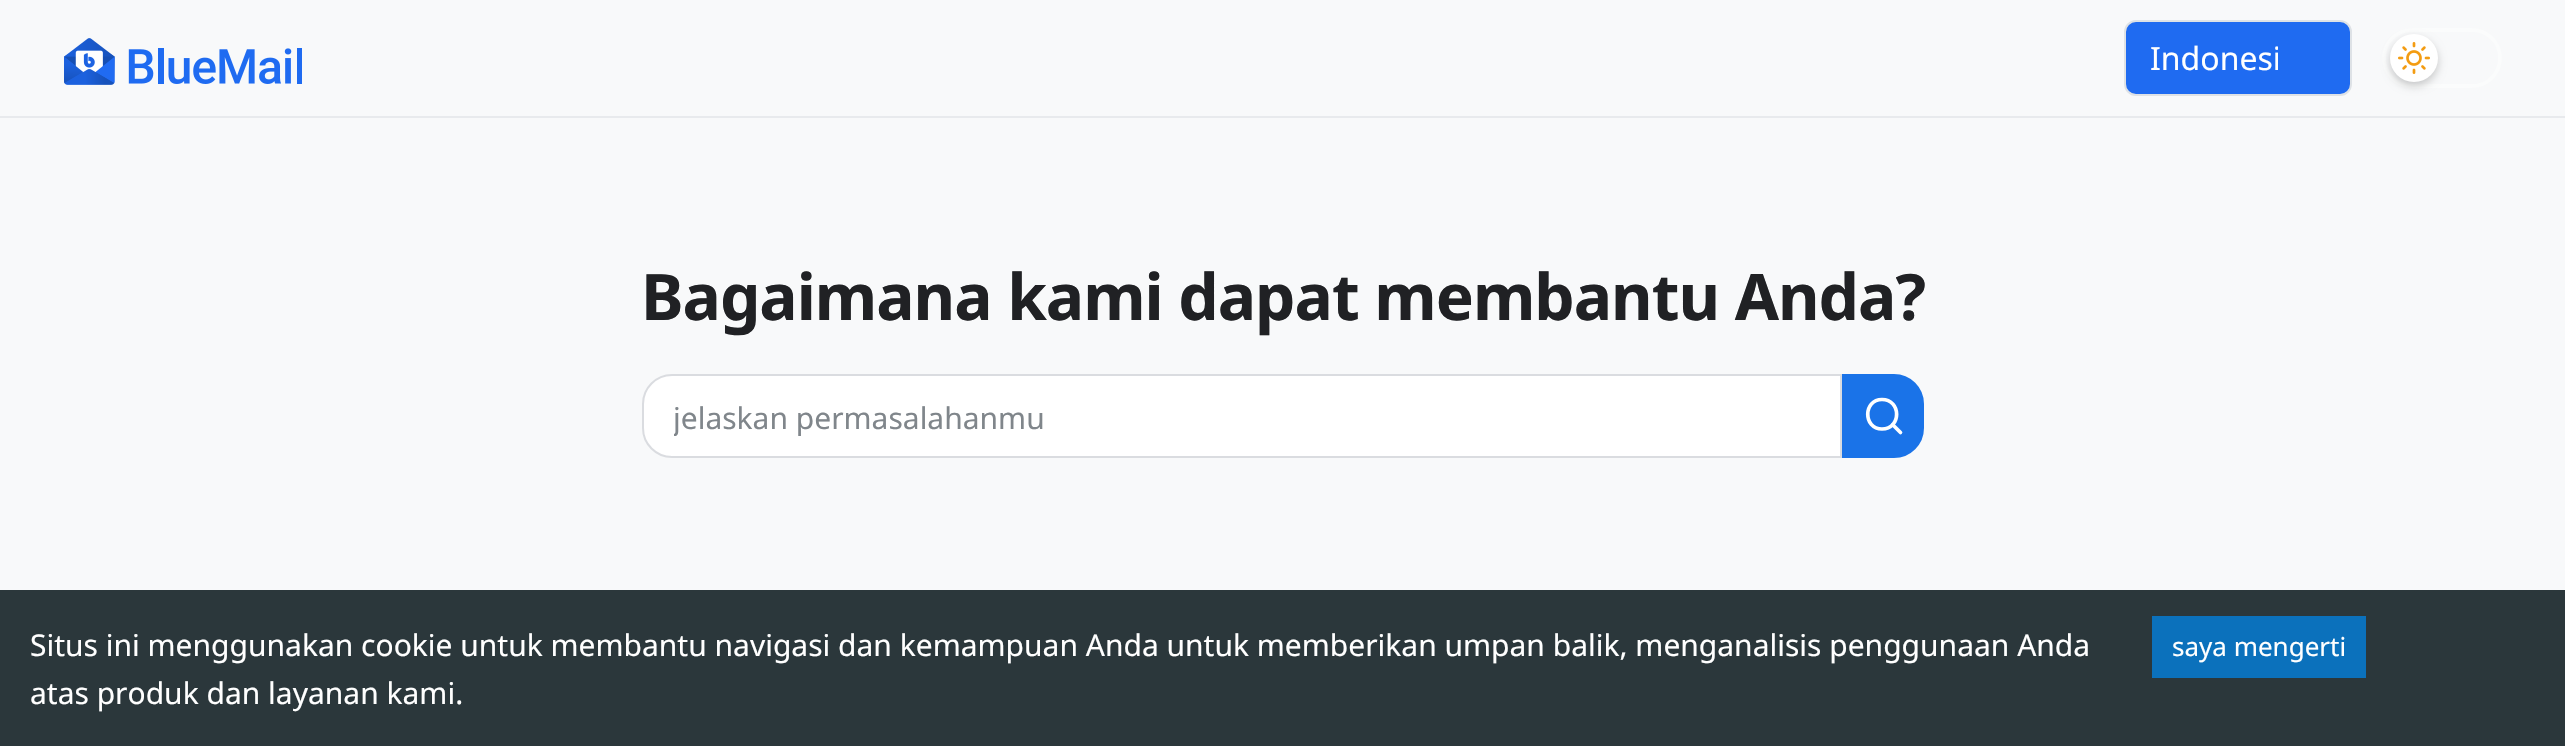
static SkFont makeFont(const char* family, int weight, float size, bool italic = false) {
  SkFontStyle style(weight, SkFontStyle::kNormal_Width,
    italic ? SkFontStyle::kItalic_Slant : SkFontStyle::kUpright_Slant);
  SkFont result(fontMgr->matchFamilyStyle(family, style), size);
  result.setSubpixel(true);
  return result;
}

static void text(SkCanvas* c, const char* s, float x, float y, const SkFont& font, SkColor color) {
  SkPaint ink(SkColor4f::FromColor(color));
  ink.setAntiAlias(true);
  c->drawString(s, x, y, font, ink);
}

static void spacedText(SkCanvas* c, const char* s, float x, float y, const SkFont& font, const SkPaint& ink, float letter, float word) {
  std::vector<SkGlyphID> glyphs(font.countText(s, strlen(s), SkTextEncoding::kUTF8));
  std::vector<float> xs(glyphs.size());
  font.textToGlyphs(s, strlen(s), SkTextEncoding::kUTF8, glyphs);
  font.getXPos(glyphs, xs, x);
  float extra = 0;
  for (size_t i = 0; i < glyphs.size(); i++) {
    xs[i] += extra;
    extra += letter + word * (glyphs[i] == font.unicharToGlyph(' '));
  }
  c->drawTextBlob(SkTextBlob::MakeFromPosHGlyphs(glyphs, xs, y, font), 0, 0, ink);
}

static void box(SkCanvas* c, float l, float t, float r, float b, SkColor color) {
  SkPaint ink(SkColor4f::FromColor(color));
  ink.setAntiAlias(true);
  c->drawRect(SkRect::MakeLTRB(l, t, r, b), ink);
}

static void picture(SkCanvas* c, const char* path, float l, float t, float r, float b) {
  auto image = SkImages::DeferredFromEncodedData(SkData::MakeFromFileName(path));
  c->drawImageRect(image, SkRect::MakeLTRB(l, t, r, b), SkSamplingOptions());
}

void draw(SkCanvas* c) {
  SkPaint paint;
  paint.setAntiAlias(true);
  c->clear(0xfff8f9fa);
  box(c, 0, 116, 2565, 118, 0xffe8eaed);
  picture(c, "img_01.png", 64, 38, 302, 85);
  paint.setColor(0xff1f6bf1);
  c->drawRoundRect(SkRect::MakeLTRB(2125, 21, 2351, 95), 11, 11, paint);
  paint.setStyle(SkPaint::kStroke_Style);
  paint.setStrokeWidth(2);
  paint.setColor(0xffdee2e6);
  c->drawRoundRect(SkRect::MakeLTRB(2125, 21, 2351, 95), 11, 11, paint);
  c->save();
  c->clipRect(SkRect::MakeLTRB(2150, 34, 2278, 82));
  SkFont face1 = makeFont("Noto Sans", 400, 32);
  text(c, "Indonesi", 2150, 70, face1, 0xffffffff);
  c->restore();
  paint.setStrokeWidth(4);
  paint.setColor(0xfffbfcfc);
  c->drawRoundRect(SkRect::MakeLTRB(2384, 30, 2500, 86), 28, 28, paint);
  paint.setStyle(SkPaint::kFill_Style);
  paint.setColor(0x33000000);
  paint.setMaskFilter(SkMaskFilter::MakeBlur(kNormal_SkBlurStyle, 4));
  c->drawRoundRect(SkRect::MakeLTRB(2390, 38, 2438, 86), 24, 24, paint);
  paint.setMaskFilter(nullptr);
  paint.setColor(0xffffffff);
  c->drawCircle(2414, 58, 24, paint);
  picture(c, "img_02.png", 2398, 42, 2430, 74);
  SkFont face2 = makeFont("Noto Sans", 700, 64);
  paint.setColor(0xff202124);
  spacedText(c, "Bagaimana kami dapat membantu Anda?", 641, 320, face2, paint, -1, 0);
  paint.setColor(0xffffffff);
  c->drawPath(SkPathBuilder().moveTo(672, 375).lineTo(1841, 375).lineTo(1841, 457).lineTo(672, 457).cubicTo(656, 457, 643, 444, 643, 428).lineTo(643, 404).cubicTo(643, 388, 656, 375, 672, 375).close().detach(), paint);
  paint.setStyle(SkPaint::kStroke_Style);
  paint.setStrokeWidth(2);
  paint.setColor(0xffdadce0);
  c->drawPath(SkPathBuilder().moveTo(672, 375).lineTo(1841, 375).lineTo(1841, 457).lineTo(672, 457).cubicTo(656, 457, 643, 444, 643, 428).lineTo(643, 404).cubicTo(643, 388, 656, 375, 672, 375).close().detach(), paint);
  c->save();
  c->clipRect(SkRect::MakeLTRB(674, 396, 1810, 436));
  SkFont face3 = makeFont("Noto Sans", 400, 30);
  text(c, "jelaskan permasalahanmu", 673, 429, face3, 0xff80868b);
  c->restore();
  paint.setStyle(SkPaint::kFill_Style);
  paint.setColor(0xff1a73e8);
  c->drawPath(SkPathBuilder().moveTo(1843, 375).lineTo(1894, 375).cubicTo(1910, 375, 1923, 388, 1923, 404).lineTo(1923, 428).cubicTo(1923, 444, 1910, 457, 1894, 457).lineTo(1843, 457).close().detach(), paint);
  paint.setStyle(SkPaint::kStroke_Style);
  c->drawPath(SkPathBuilder().moveTo(1843, 375).lineTo(1894, 375).cubicTo(1910, 375, 1923, 388, 1923, 404).lineTo(1923, 428).cubicTo(1923, 444, 1910, 457, 1894, 457).lineTo(1843, 457).close().detach(), paint);
  paint.setStrokeWidth(3.7f);
  paint.setStrokeCap(SkPaint::kRound_Cap);
  paint.setStrokeJoin(SkPaint::kRound_Join);
  paint.setColor(0xffffffff);
  c->drawPath(SkPathBuilder().moveTo(1882, 429).cubicTo(1901.5f, 429, 1901.5f, 399.5f, 1882, 399.5f).cubicTo(1863, 399.5f, 1863, 429, 1882, 429).close().moveTo(1900.5f, 432.5f).lineTo(1892.5f, 424.5f).detach(), paint);
  box(c, 0, 590, 2565, 746, 0xff2b373b);
  text(c, "Situs ini menggunakan cookie untuk membantu navigasi dan kemampuan Anda untuk memberikan umpan balik, menganalisis penggunaan Anda", 30, 656, face3, 0xffffffff);
  text(c, "atas produk dan layanan kami.", 30, 704, face3, 0xffffffff);
  box(c, 2152, 616, 2366, 678, 0xff0b71bc);
  SkFont face4 = makeFont("Noto Sans", 400, 26);
  text(c, "saya mengerti", 2172, 656, face4, 0xffffffff);
}
